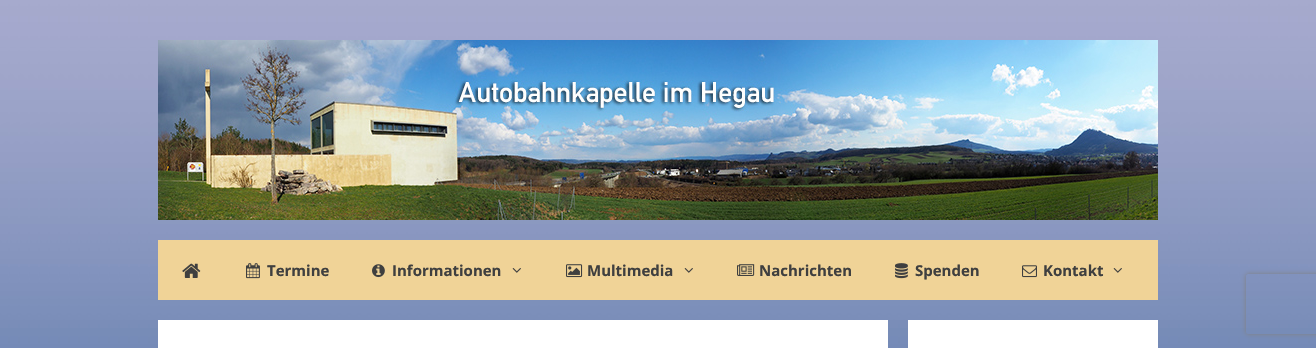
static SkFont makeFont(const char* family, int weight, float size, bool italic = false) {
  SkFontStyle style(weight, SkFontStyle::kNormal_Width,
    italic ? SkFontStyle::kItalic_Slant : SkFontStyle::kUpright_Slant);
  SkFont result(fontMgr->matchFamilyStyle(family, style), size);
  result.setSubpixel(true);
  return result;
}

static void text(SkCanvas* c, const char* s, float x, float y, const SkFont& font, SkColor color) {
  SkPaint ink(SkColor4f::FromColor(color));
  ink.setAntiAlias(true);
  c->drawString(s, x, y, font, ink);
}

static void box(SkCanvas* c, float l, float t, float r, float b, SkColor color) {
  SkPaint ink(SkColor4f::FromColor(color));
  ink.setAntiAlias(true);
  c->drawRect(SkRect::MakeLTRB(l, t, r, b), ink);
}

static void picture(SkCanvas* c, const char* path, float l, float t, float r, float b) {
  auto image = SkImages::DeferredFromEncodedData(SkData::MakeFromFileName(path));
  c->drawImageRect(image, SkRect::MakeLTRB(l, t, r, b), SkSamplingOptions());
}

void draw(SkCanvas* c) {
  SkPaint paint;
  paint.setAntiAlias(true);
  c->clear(0xffffffff);
  picture(c, "img_01.png", 0, 0, 1316, 348);
  picture(c, "img_02.png", 158, 0, 1158, 240);
  picture(c, "img_03.png", 158, 40, 1158, 220);
  box(c, 158, 240, 1158, 300, 0xfff0d397);
  picture(c, "img_04.png", 182, 263, 201, 278);
  picture(c, "img_05.png", 246, 263, 260, 279);
  SkFont face1 = makeFont("Open Sans", 700, 15);
  text(c, "Termine", 267, 276, face1, 0xff3f3f3f);
  picture(c, "img_06.png", 372, 264, 385, 278);
  text(c, "Informationen", 392, 276, face1, 0xff3f3f3f);
  picture(c, "img_07.png", 512, 268, 521, 273);
  picture(c, "img_08.png", 566, 264, 583, 278);
  text(c, "Multimedia", 587, 276, face1, 0xff3f3f3f);
  picture(c, "img_07.png", 684, 268, 693, 273);
  picture(c, "img_09.png", 737, 264, 755, 276);
  text(c, "Nachrichten", 759, 276, face1, 0xff3f3f3f);
  picture(c, "img_10.png", 895, 263, 908, 279);
  text(c, "Spenden", 915, 276, face1, 0xff3f3f3f);
  picture(c, "img_11.png", 1022, 265, 1037, 278);
  text(c, "Kontakt", 1043, 276, face1, 0xff3f3f3f);
  picture(c, "img_07.png", 1113, 268, 1122, 273);
  c->save();
  c->clipPath(SkPathBuilder(SkPathFillType::kEvenOdd).moveTo(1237, 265).lineTo(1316, 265).lineTo(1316, 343).lineTo(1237, 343).close().moveTo(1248, 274).lineTo(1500, 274).cubicTo(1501, 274, 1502, 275, 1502, 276).lineTo(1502, 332).cubicTo(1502, 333, 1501, 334, 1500, 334).lineTo(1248, 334).cubicTo(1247, 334, 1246, 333, 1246, 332).lineTo(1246, 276).cubicTo(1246, 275, 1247, 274, 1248, 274).close().detach(), true);
  paint.setColor(0xff808080);
  paint.setMaskFilter(SkMaskFilter::MakeBlur(kNormal_SkBlurStyle, 2.5f));
  c->drawRoundRect(SkRect::MakeLTRB(1246, 274, 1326, 334), 2, 2, paint);
  paint.setMaskFilter(nullptr);
  c->restore();
  box(c, 158, 320, 888, 348, 0xffffffff);
  box(c, 908, 320, 1158, 348, 0xffffffff);
}
